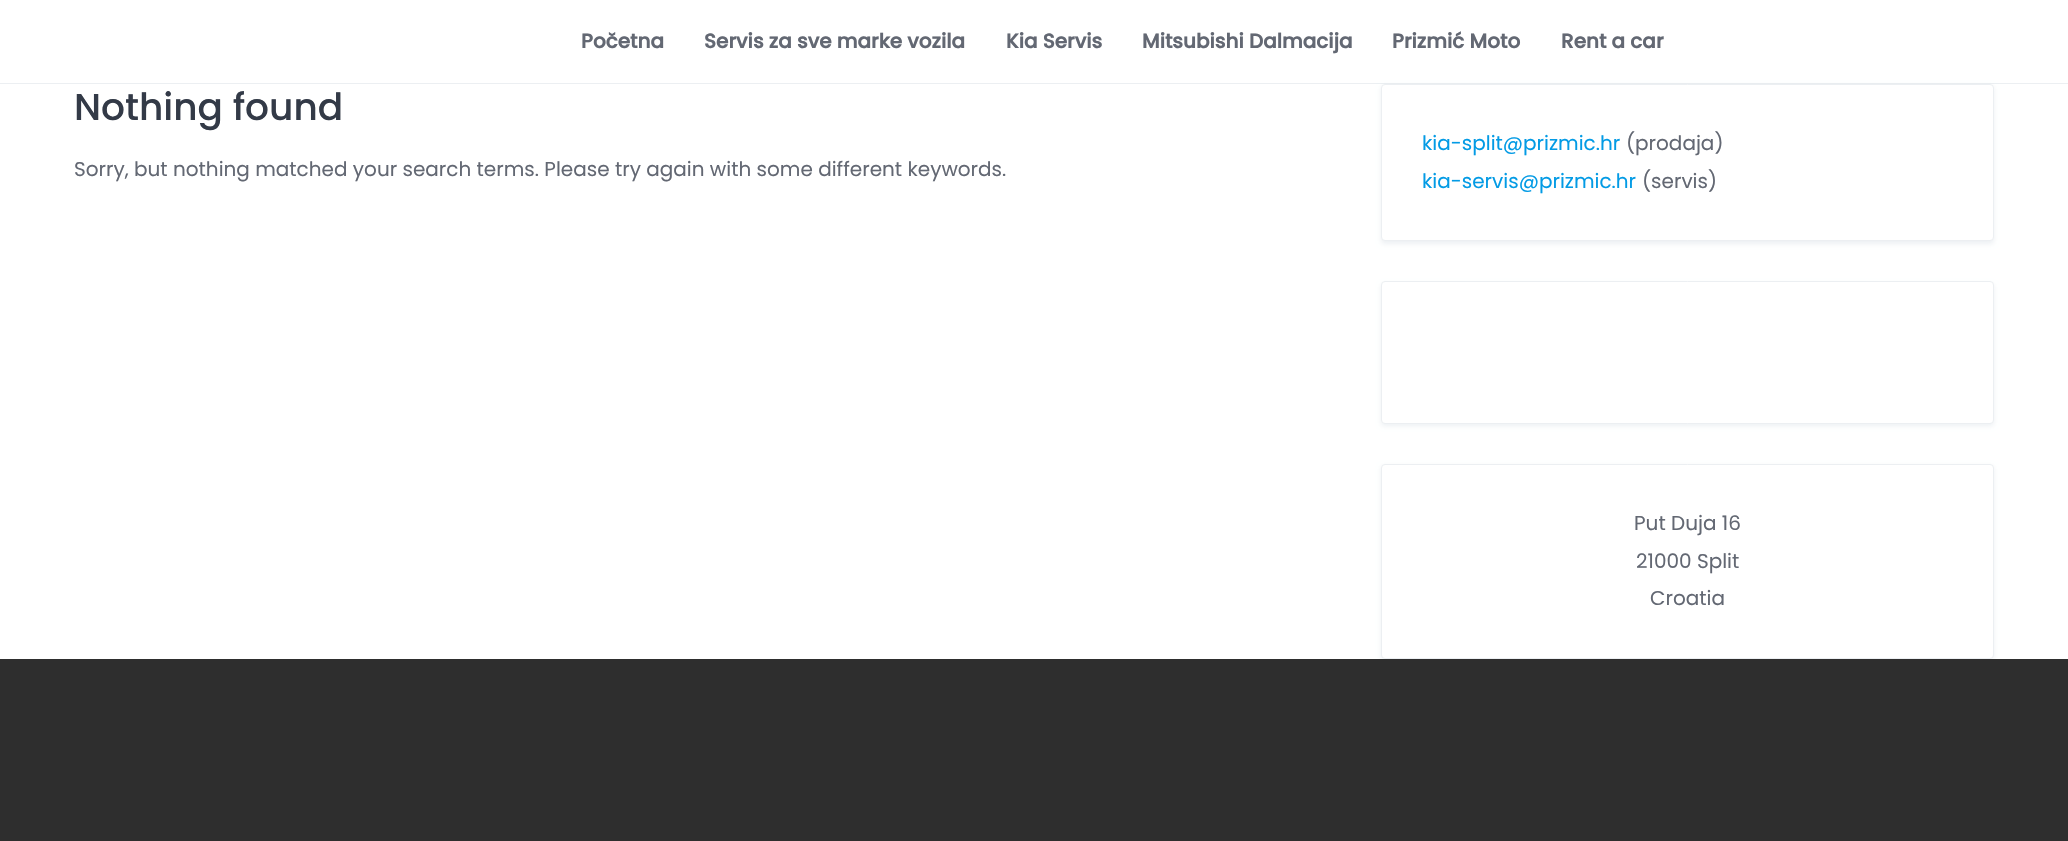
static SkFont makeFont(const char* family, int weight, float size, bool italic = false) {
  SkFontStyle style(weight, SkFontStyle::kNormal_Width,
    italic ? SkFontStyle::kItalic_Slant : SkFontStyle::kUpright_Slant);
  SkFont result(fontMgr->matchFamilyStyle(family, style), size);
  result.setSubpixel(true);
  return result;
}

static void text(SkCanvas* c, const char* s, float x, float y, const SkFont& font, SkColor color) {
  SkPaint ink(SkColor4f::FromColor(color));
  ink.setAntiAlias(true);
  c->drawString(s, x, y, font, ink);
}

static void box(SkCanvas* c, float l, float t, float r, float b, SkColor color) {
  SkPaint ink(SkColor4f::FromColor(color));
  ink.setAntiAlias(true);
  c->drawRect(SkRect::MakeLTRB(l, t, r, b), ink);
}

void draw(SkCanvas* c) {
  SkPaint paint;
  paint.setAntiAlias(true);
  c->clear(0xffffffff);
  box(c, 0, 83, 2068, 84, 0xffeceff2);
  SkFont face1 = makeFont("Poppins", 700, 20);
  text(c, "Početna", 581, 48, face1, 0xff636873);
  text(c, "Servis za sve marke vozila", 704, 48, face1, 0xff636873);
  text(c, "Kia Servis", 1006, 48, face1, 0xff636873);
  text(c, "Mitsubishi Dalmacija", 1142, 48, face1, 0xff636873);
  text(c, "Prizmić Moto", 1392, 48, face1, 0xff636873);
  text(c, "Rent a car", 1561, 48, face1, 0xff636873);
  SkFont face2 = makeFont("Poppins", 500, 37.5f);
  text(c, "Nothing found", 74, 120, face2, 0xff333a47);
  SkFont face3 = makeFont("Poppins", 400, 20);
  text(c, "Sorry, but nothing matched your search terms. Please try again with some different keywords.", 74, 176, face3, 0xff636873);
  paint.setColor(0x12072456);
  paint.setMaskFilter(SkMaskFilter::MakeBlur(kNormal_SkBlurStyle, 2.5f));
  c->drawRoundRect(SkRect::MakeLTRB(1381, 86, 1994, 244), 4, 4, paint);
  paint.setMaskFilter(nullptr);
  paint.setColor(0xffffffff);
  c->drawRoundRect(SkRect::MakeLTRB(1381.5f, 84.5f, 1993.5f, 240.5f), 3.5f, 3.5f, paint);
  paint.setStyle(SkPaint::kStroke_Style);
  paint.setStrokeWidth(1);
  paint.setColor(0xffeceff2);
  c->drawRoundRect(SkRect::MakeLTRB(1381.5f, 84.5f, 1993.5f, 240.5f), 3.5f, 3.5f, paint);
  text(c, "kia-split@prizmic.hr", 1422, 150, face3, 0xff039be5);
  text(c, "(prodaja)", 1626, 150, face3, 0xff636873);
  text(c, "kia-servis@prizmic.hr", 1422, 188, face3, 0xff039be5);
  text(c, "(servis)", 1642, 188, face3, 0xff636873);
  paint.setStyle(SkPaint::kFill_Style);
  paint.setColor(0x12072456);
  paint.setMaskFilter(SkMaskFilter::MakeBlur(kNormal_SkBlurStyle, 2.5f));
  c->drawRoundRect(SkRect::MakeLTRB(1381, 284, 1994, 426), 4, 4, paint);
  paint.setMaskFilter(nullptr);
  paint.setColor(0xffffffff);
  c->drawRoundRect(SkRect::MakeLTRB(1381.5f, 281.5f, 1993.5f, 423.5f), 3.5f, 3.5f, paint);
  paint.setStyle(SkPaint::kStroke_Style);
  paint.setColor(0xffeceff2);
  c->drawRoundRect(SkRect::MakeLTRB(1381.5f, 281.5f, 1993.5f, 423.5f), 3.5f, 3.5f, paint);
  box(c, 0, 659, 2068, 841, 0xff2e2e2e);
  c->save();
  c->clipRect(SkRect::MakeLTRB(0, 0, 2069, 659));
  paint.setStyle(SkPaint::kFill_Style);
  paint.setColor(0x12072456);
  paint.setMaskFilter(SkMaskFilter::MakeBlur(kNormal_SkBlurStyle, 2.5f));
  c->drawRoundRect(SkRect::MakeLTRB(1381, 466, 1994, 661), 4, 4, paint);
  paint.setMaskFilter(nullptr);
  c->restore();
  paint.setColor(0xffffffff);
  c->drawRoundRect(SkRect::MakeLTRB(1381.5f, 464.5f, 1993.5f, 658.5f), 3.5f, 3.5f, paint);
  paint.setStyle(SkPaint::kStroke_Style);
  paint.setColor(0xffeceff2);
  c->drawRoundRect(SkRect::MakeLTRB(1381.5f, 464.5f, 1993.5f, 658.5f), 3.5f, 3.5f, paint);
  text(c, "Put Duja 16", 1634, 530, face3, 0xff636873);
  text(c, "21000 Split", 1636, 568, face3, 0xff636873);
  text(c, "Croatia", 1650, 605, face3, 0xff636873);
}
